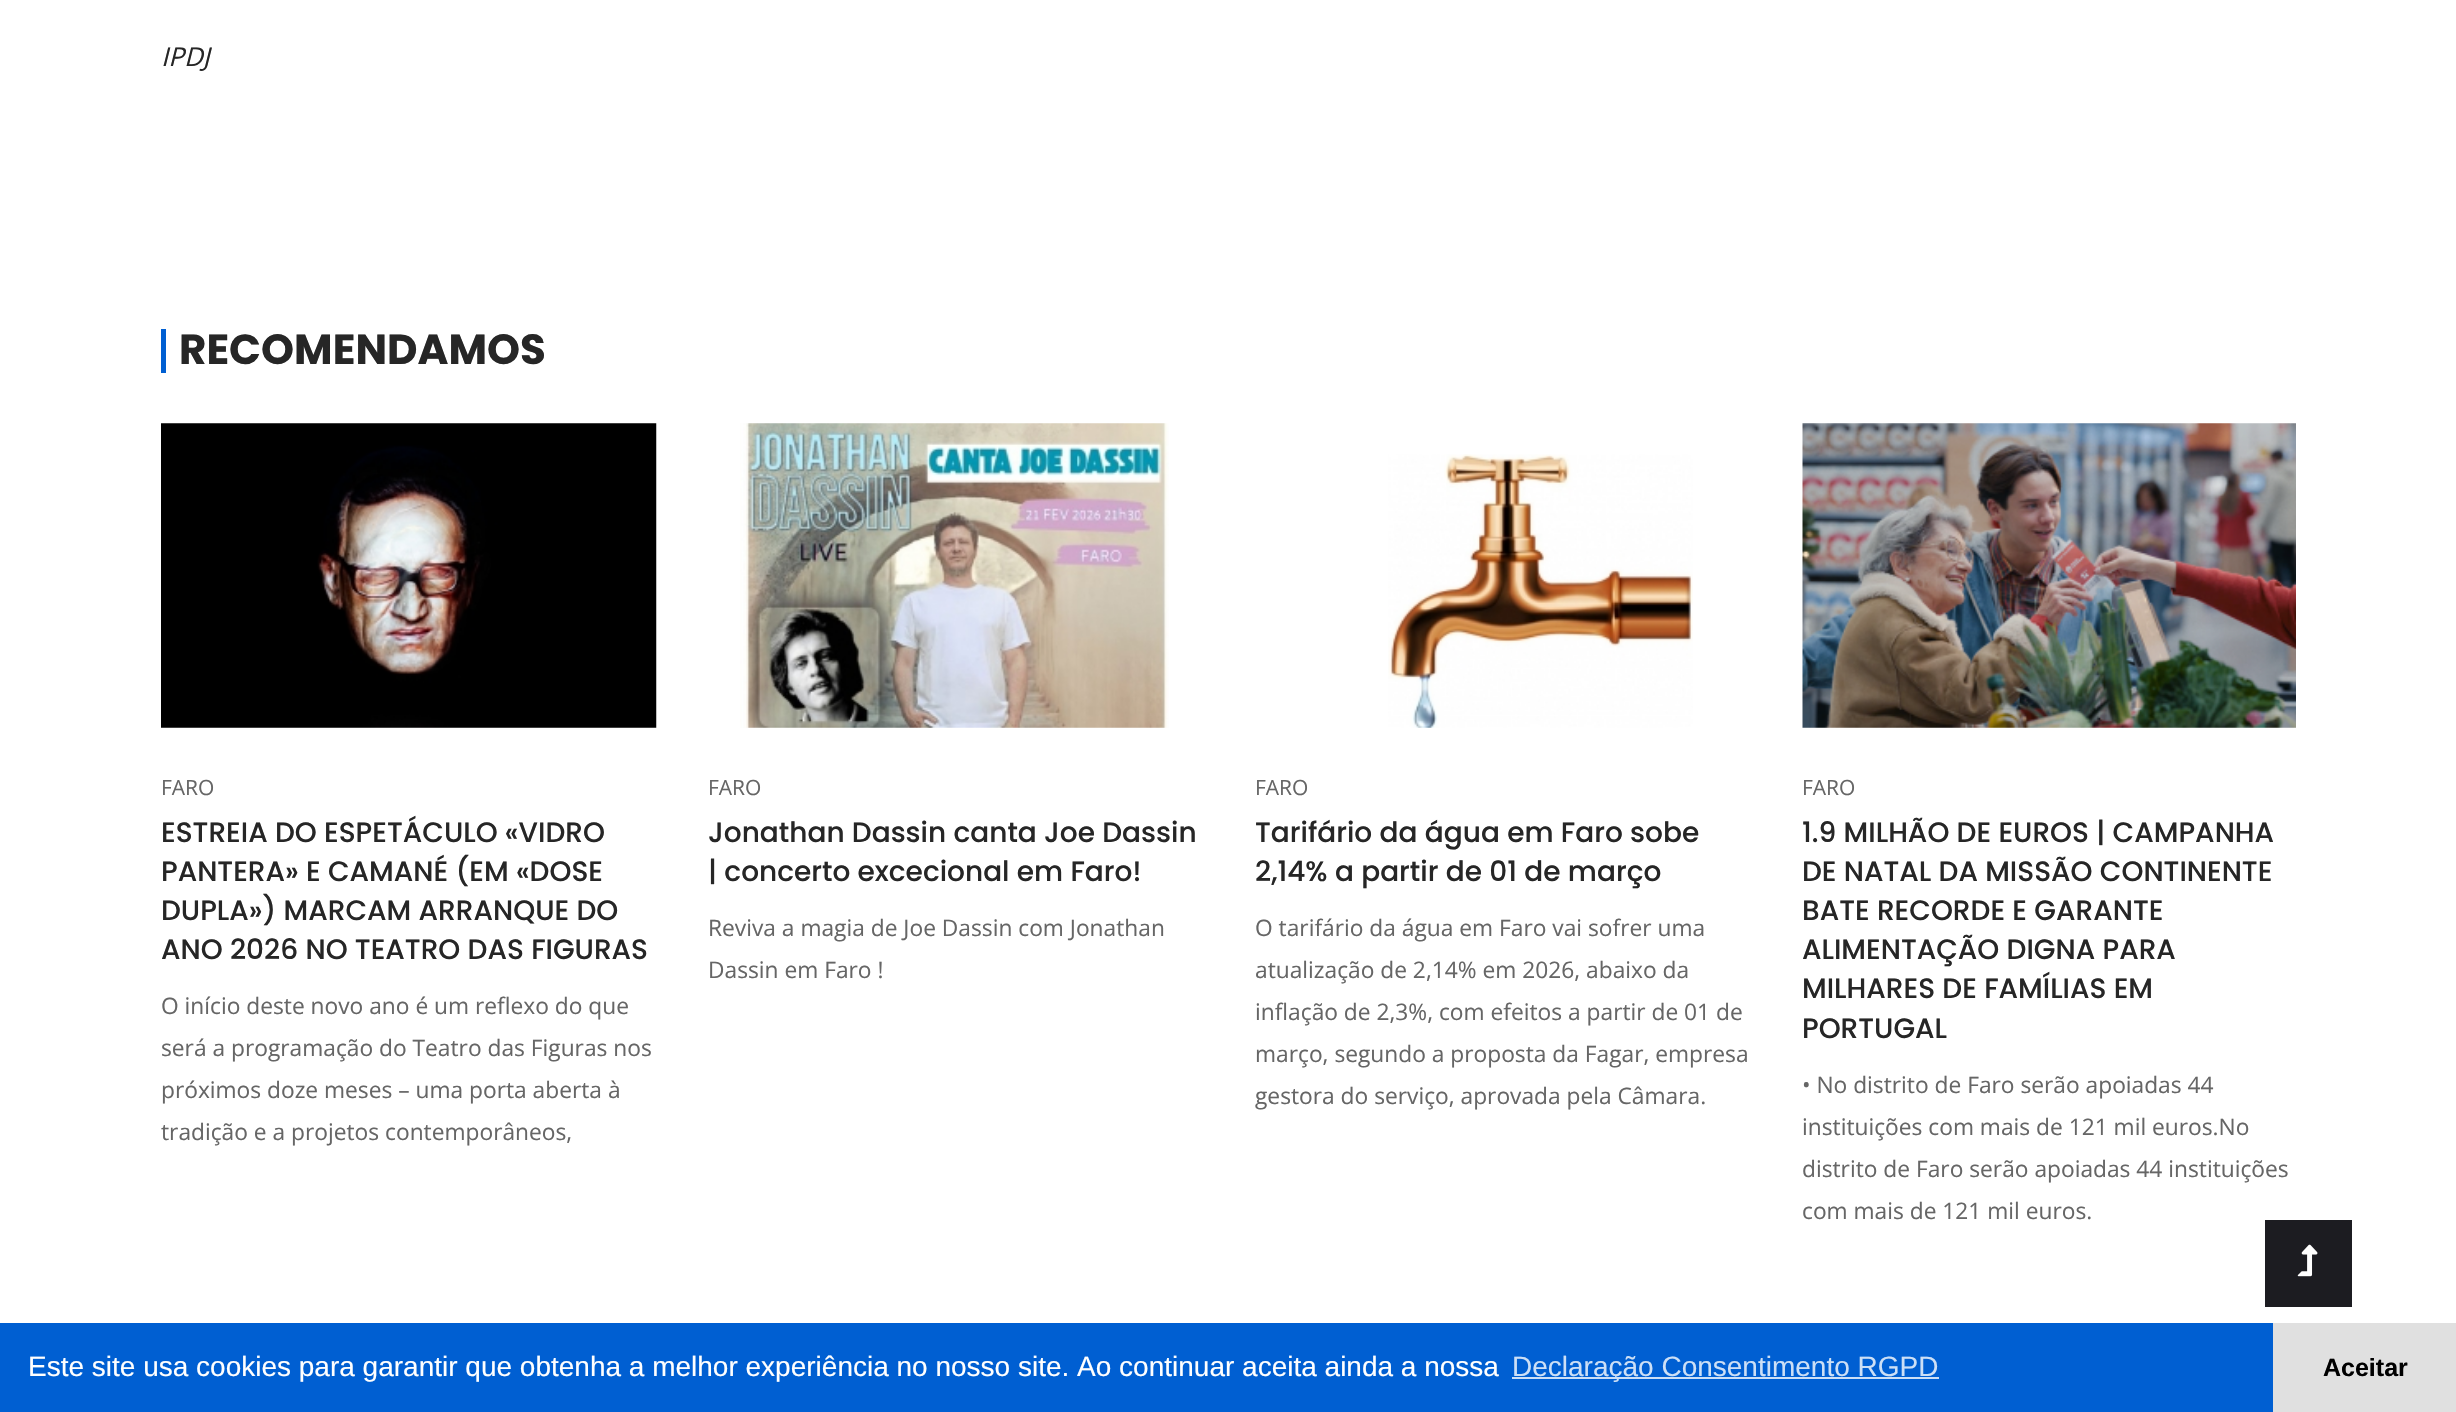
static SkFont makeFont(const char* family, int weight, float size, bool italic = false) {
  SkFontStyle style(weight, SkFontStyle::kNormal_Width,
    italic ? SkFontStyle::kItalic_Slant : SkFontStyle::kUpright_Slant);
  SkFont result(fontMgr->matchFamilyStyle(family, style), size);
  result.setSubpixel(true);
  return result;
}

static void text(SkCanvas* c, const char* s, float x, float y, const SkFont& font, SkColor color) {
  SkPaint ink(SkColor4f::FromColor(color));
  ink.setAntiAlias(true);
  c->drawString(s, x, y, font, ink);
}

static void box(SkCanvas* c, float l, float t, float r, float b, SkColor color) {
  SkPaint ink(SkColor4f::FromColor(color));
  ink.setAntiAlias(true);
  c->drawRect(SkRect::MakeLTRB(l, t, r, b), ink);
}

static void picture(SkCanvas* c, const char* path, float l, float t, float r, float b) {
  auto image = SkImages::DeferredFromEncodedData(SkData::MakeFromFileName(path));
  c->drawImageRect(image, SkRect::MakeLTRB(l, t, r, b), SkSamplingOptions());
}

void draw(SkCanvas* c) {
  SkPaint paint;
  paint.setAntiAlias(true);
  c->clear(0xffffffff);
  SkFont face1 = makeFont("Open Sans", 400, 26, true);
  text(c, "IPDJ", 161, 66, face1, 0xff262626);
  box(c, 161, 329, 166, 373, 0xff005fd2);
  SkFont face2 = makeFont("Poppins", 700, 42);
  text(c, "RECOMENDAMOS", 179, 364, face2, 0xff262626);
  picture(c, "img_01.png", 161, 423, 657, 728);
  SkFont face3 = makeFont("Open Sans", 400, 21);
  text(c, "FARO", 161, 795, face3, 0xff666666);
  SkFont face4 = makeFont("Poppins", 500, 28);
  text(c, "ESTREIA DO ESPETÁCULO «VIDRO", 161, 842, face4, 0xff262626);
  text(c, "PANTERA» E CAMANÉ (EM «DOSE", 161, 881, face4, 0xff262626);
  text(c, "DUPLA») MARCAM ARRANQUE DO", 161, 920, face4, 0xff262626);
  text(c, "ANO 2026 NO TEATRO DAS FIGURAS", 161, 959, face4, 0xff262626);
  SkFont face5 = makeFont("Open Sans", 400, 22.75f);
  text(c, "O início deste novo ano é um reflexo do que", 161, 1014, face5, 0xff666666);
  text(c, "será a programação do Teatro das Figuras nos", 161, 1056, face5, 0xff666666);
  text(c, "próximos doze meses – uma porta aberta à", 161, 1098, face5, 0xff666666);
  text(c, "tradição e a projetos contemporâneos,", 161, 1140, face5, 0xff666666);
  picture(c, "img_02.png", 740, 423, 1169, 728);
  text(c, "FARO", 708, 795, face3, 0xff666666);
  text(c, "Jonathan Dassin canta Joe Dassin", 708, 842, face4, 0xff262626);
  text(c, "| concerto excecional em Faro!", 708, 881, face4, 0xff262626);
  text(c, "Reviva a magia de Joe Dassin com Jonathan", 708, 936, face5, 0xff666666);
  text(c, "Dassin em Faro !", 708, 978, face5, 0xff666666);
  picture(c, "img_03.png", 1388, 454, 1693, 728);
  text(c, "FARO", 1255, 795, face3, 0xff666666);
  text(c, "Tarifário da água em Faro sobe", 1255, 842, face4, 0xff262626);
  text(c, "2,14% a partir de 01 de março", 1255, 881, face4, 0xff262626);
  text(c, "O tarifário da água em Faro vai sofrer uma", 1255, 936, face5, 0xff666666);
  text(c, "atualização de 2,14% em 2026, abaixo da", 1255, 978, face5, 0xff666666);
  text(c, "inflação de 2,3%, com efeitos a partir de 01 de", 1255, 1020, face5, 0xff666666);
  text(c, "março, segundo a proposta da Fagar, empresa", 1255, 1062, face5, 0xff666666);
  text(c, "gestora do serviço, aprovada pela Câmara.", 1255, 1104, face5, 0xff666666);
  picture(c, "img_04.png", 1802, 423, 2296, 728);
  text(c, "FARO", 1802, 795, face3, 0xff666666);
  text(c, "1.9 MILHÃO DE EUROS | CAMPANHA", 1802, 842, face4, 0xff262626);
  text(c, "DE NATAL DA MISSÃO CONTINENTE", 1802, 881, face4, 0xff262626);
  text(c, "BATE RECORDE E GARANTE", 1802, 920, face4, 0xff262626);
  text(c, "ALIMENTAÇÃO DIGNA PARA", 1802, 959, face4, 0xff262626);
  text(c, "MILHARES DE FAMÍLIAS EM", 1802, 998, face4, 0xff262626);
  text(c, "PORTUGAL", 1802, 1038, face4, 0xff262626);
  text(c, "• No distrito de Faro serão apoiadas 44", 1802, 1093, face5, 0xff666666);
  text(c, "instituições com mais de 121 mil euros.No", 1802, 1135, face5, 0xff666666);
  text(c, "distrito de Faro serão apoiadas 44 instituições", 1802, 1177, face5, 0xff666666);
  text(c, "com mais de 121 mil euros.", 1802, 1219, face5, 0xff666666);
  box(c, 2265, 1220, 2352, 1307, 0xff1c1c21);
  picture(c, "img_05.png", 2297, 1244, 2318, 1277);
  box(c, 0, 1323, 2273, 1412, 0xff005fd2);
  SkFont face6 = makeFont("Liberation Sans", 400, 28);
  text(c, "Este site usa cookies para garantir que obtenha a melhor experiência no nosso site. Ao continuar aceita ainda a nossa", 28, 1376, face6, 0xffffffff);
  box(c, 1512, 1377, 1939, 1379, 0xffccdff6);
  text(c, "Declaração Consentimento RGPD", 1512, 1376, face6, 0xffccdff6);
  box(c, 2273, 1323, 2456, 1412, 0xffe0e0e0);
  SkFont face7 = makeFont("Liberation Sans", 700, 25);
  text(c, "Aceitar", 2323, 1376, face7, 0xff000000);
}
